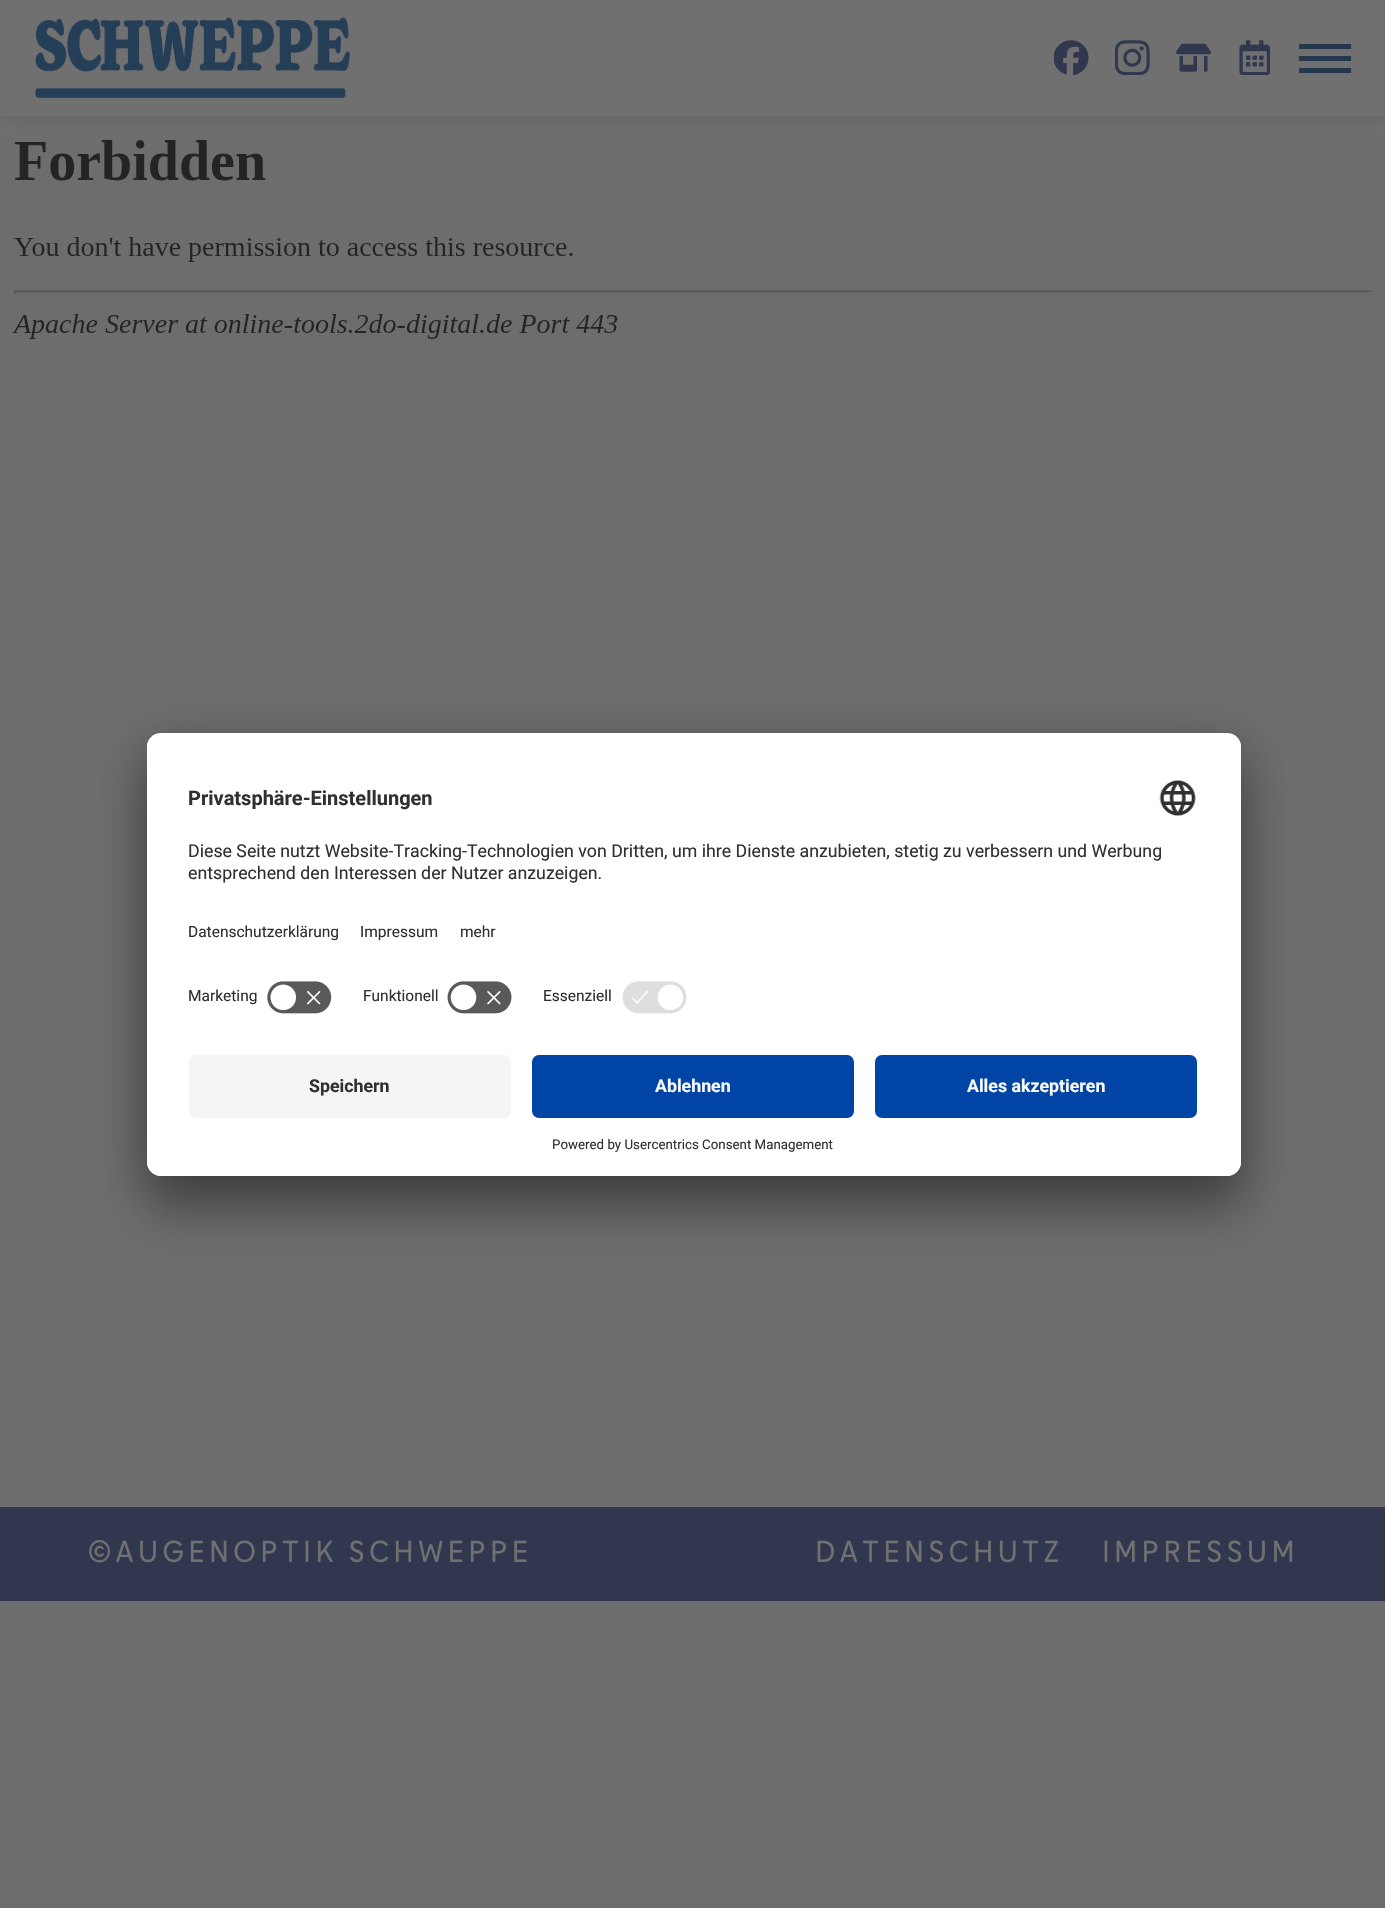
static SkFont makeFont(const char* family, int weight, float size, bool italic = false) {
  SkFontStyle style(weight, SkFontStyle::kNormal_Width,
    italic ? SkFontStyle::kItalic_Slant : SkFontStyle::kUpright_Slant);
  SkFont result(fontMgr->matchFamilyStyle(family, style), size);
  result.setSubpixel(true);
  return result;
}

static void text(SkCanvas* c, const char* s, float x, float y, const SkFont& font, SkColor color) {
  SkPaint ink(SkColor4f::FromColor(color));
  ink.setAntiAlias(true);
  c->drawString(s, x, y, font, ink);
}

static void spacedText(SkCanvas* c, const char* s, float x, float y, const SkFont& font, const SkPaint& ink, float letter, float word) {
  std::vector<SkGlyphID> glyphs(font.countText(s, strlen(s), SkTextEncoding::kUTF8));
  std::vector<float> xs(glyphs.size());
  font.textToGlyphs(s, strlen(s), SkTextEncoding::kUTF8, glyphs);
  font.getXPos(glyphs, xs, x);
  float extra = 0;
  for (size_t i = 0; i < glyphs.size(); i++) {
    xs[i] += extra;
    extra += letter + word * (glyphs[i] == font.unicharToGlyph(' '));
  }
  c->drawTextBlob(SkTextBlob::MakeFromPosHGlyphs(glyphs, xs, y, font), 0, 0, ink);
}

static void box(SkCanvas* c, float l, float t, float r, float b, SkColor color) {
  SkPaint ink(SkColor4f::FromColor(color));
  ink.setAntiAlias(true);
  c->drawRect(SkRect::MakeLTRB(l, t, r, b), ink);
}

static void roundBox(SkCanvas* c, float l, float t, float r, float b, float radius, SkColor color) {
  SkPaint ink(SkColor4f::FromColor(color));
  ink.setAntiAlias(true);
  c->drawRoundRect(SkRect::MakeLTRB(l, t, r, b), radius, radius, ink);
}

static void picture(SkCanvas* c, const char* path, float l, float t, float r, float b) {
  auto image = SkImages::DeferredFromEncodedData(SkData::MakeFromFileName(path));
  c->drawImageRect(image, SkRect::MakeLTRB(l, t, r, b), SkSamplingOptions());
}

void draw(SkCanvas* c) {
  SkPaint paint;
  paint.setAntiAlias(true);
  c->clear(0xff6d6d6d);
  paint.setColor(0x26242424);
  paint.setMaskFilter(SkMaskFilter::MakeBlur(kNormal_SkBlurStyle, 7));
  c->drawRect(SkRect::MakeLTRB(4, 0, 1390, 116), paint);
  paint.setMaskFilter(nullptr);
  box(c, 0, 0, 1385, 116, 0xff707070);
  picture(c, "img_01.png", 35, 17, 350, 98);
  picture(c, "img_02.png", 1054, 40, 1089, 75);
  picture(c, "img_03.png", 1115, 40, 1150, 75);
  picture(c, "img_04.png", 1176, 43, 1211, 72);
  picture(c, "img_05.png", 1239, 40, 1271, 75);
  box(c, 1299, 44, 1351, 49, 0xff24374d);
  box(c, 1299, 56, 1351, 61, 0xff24374d);
  box(c, 1299, 68, 1351, 73, 0xff24374d);
  paint.setColor(0x4d000000);
  paint.setMaskFilter(SkMaskFilter::MakeBlur(kNormal_SkBlurStyle, 24.5f));
  c->drawRoundRect(SkRect::MakeLTRB(147, 768, 1241, 1211), 14, 14, paint);
  paint.setMaskFilter(nullptr);
  paint.setColor(0x38000000);
  paint.setMaskFilter(SkMaskFilter::MakeBlur(kNormal_SkBlurStyle, 23));
  c->drawRoundRect(SkRect::MakeLTRB(147, 742, 1241, 1185), 14, 14, paint);
  paint.setMaskFilter(nullptr);
  roundBox(c, 147, 733, 1241, 1176, 14, 0xffffffff);
  c->save();
  c->clipPath(SkPathBuilder().moveTo(161, 733).lineTo(1227, 733).cubicTo(1234.5f, 733, 1241, 739.5f, 1241, 747).lineTo(1241, 1162).cubicTo(1241, 1169.5f, 1234.5f, 1176, 1227, 1176).lineTo(161, 1176).cubicTo(153.5f, 1176, 147, 1169.5f, 147, 1162).lineTo(147, 747).cubicTo(147, 739.5f, 153.5f, 733, 161, 733).close().detach(), true);
  c->clipPath(SkPathBuilder().moveTo(161, 733).lineTo(1227, 733).cubicTo(1234.5f, 733, 1241, 739.5f, 1241, 747).lineTo(1241, 1041).lineTo(147, 1041).lineTo(147, 747).cubicTo(147, 739.5f, 153.5f, 733, 161, 733).close().detach(), true);
  box(c, 147, 735, 1241, 1041, 0xffffffff);
  box(c, 147, 735, 1241, 971, 0xffffffff);
  c->restore();
  SkFont face1 = makeFont("Roboto", 700, 20);
  text(c, "Privatsphäre-Einstellungen", 188, 805, face1, 0xff303030);
  picture(c, "img_06.png", 1159, 780, 1196, 816);
  SkFont face2 = makeFont("Roboto", 400, 17.75f);
  text(c, "Diese Seite nutzt Website-Tracking-Technologien von Dritten, um ihre Dienste anzubieten, stetig zu verbessern und Werbung", 188, 857, face2, 0xff303030);
  text(c, "entsprechend den Interessen der Nutzer anzuzeigen.", 188, 879, face2, 0xff303030);
  SkFont face3 = makeFont("Roboto", 400, 15.5f);
  text(c, "Datenschutzerklärung", 188, 937, face3, 0xff303030);
  text(c, "Impressum", 360, 937, face3, 0xff303030);
  text(c, "mehr", 460, 937, face3, 0xff303030);
  text(c, "Marketing", 188, 1001, face3, 0xff303030);
  picture(c, "img_07.png", 267, 981, 332, 1014);
  text(c, "Funktionell", 363, 1001, face3, 0xff303030);
  picture(c, "img_08.png", 447, 981, 512, 1014);
  text(c, "Essenziell", 543, 1001, face3, 0xff303030);
  picture(c, "img_09.png", 622, 981, 687, 1014);
  paint.setColor(0xffffffff);
  c->drawPath(SkPathBuilder().moveTo(147, 1041).lineTo(1241, 1041).lineTo(1241, 1162).cubicTo(1241, 1169.5f, 1234.5f, 1176, 1227, 1176).lineTo(161, 1176).cubicTo(153.5f, 1176, 147, 1169.5f, 147, 1162).close().detach(), paint);
  roundBox(c, 189, 1055, 511, 1118, 7, 0xfff5f5f5);
  SkFont face4 = makeFont("Roboto", 700, 17.75f);
  text(c, "Speichern", 309, 1092, face4, 0xff303030);
  roundBox(c, 532, 1055, 854, 1118, 7, 0xff0045a5);
  text(c, "Ablehnen", 655, 1092, face4, 0xfffafafa);
  roundBox(c, 875, 1055, 1197, 1118, 7, 0xff0045a5);
  text(c, "Alles akzeptieren", 967, 1092, face4, 0xfffafafa);
  SkFont face5 = makeFont("Roboto", 400, 13.3f);
  text(c, "Powered by Usercentrics Consent Management", 552, 1149, face5, 0xff303030);
  picture(c, "img_10.png", 12, 140, 1372, 339);
  box(c, 0, 1507, 1385, 1601, 0xff30374e);
  SkFont face6 = makeFont("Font", 400, 30.5f);
  paint.setColor(0xff707070);
  spacedText(c, "©AUGENOPTIK SCHWEPPE", 88, 1562, face6, paint, 4.1f, 0);
  spacedText(c, "DATENSCHUTZ", 815, 1562, face6, paint, 4.1f, 0);
  spacedText(c, "IMPRESSUM", 1102, 1562, face6, paint, 4.1f, 0);
}
